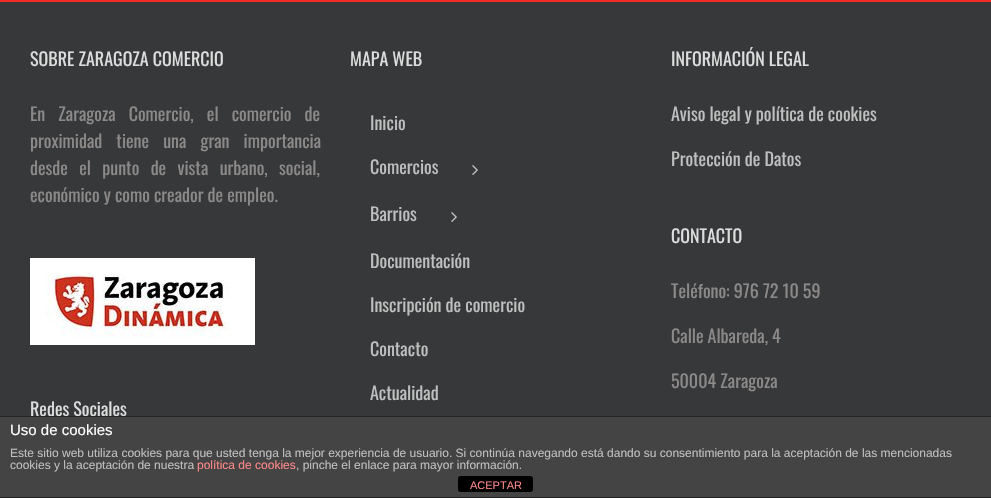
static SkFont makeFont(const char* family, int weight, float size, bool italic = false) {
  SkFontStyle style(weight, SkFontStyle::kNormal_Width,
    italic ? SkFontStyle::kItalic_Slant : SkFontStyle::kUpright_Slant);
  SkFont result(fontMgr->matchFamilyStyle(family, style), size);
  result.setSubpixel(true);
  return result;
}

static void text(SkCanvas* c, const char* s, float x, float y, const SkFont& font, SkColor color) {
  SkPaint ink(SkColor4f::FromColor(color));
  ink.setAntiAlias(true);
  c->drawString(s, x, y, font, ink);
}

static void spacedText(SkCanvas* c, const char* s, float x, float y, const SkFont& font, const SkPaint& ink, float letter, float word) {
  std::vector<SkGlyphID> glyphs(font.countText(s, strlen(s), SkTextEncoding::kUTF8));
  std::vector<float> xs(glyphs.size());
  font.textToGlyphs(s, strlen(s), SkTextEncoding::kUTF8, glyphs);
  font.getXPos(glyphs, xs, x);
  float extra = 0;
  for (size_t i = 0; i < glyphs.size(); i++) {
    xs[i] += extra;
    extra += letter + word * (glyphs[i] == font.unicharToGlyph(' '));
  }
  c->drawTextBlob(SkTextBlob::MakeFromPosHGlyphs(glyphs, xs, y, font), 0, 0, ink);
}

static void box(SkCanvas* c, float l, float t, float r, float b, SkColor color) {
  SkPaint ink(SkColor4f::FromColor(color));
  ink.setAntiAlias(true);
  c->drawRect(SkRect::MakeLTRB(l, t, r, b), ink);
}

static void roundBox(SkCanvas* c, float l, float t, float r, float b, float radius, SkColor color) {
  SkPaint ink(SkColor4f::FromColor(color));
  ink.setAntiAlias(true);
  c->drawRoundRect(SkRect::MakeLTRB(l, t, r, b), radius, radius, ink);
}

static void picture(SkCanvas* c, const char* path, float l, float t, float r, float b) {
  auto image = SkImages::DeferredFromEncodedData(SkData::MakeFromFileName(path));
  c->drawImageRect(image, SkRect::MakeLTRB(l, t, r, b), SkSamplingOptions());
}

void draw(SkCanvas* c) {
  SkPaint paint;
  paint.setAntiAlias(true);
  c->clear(0xff363839);
  box(c, 0, 0, 991, 2, 0xfff22b26);
  SkFont face1 = makeFont("Oswald", 400, 18);
  text(c, "SOBRE ZARAGOZA COMERCIO", 30, 66, face1, 0xffdddddd);
  paint.setColor(0xff8c8989);
  spacedText(c, "En Zaragoza Comercio, el comercio de", 30, 121, face1, paint, 0, 9);
  spacedText(c, "proximidad tiene una gran importancia", 30, 148, face1, paint, 0, 10);
  spacedText(c, "desde el punto de vista urbano, social,", 30, 175, face1, paint, 0, 7.25f);
  text(c, "económico y como creador de empleo.", 30, 202, face1, 0xff8c8989);
  picture(c, "img_01.png", 30, 258, 255, 345);
  text(c, "Redes Sociales", 30, 416, face1, 0xffdddddd);
  text(c, "MAPA WEB", 350, 66, face1, 0xffdddddd);
  text(c, "Inicio", 370, 130, face1, 0xffbfbfbf);
  text(c, "Comercios", 370, 174, face1, 0xffbfbfbf);
  picture(c, "img_02.png", 472, 165, 478, 175);
  text(c, "Barrios", 370, 221, face1, 0xffbfbfbf);
  picture(c, "img_02.png", 451, 212, 457, 222);
  text(c, "Documentación", 370, 268, face1, 0xffbfbfbf);
  text(c, "Inscripción de comercio", 370, 312, face1, 0xffbfbfbf);
  text(c, "Contacto", 370, 356, face1, 0xffbfbfbf);
  text(c, "Actualidad", 370, 400, face1, 0xffbfbfbf);
  text(c, "INFORMACIÓN LEGAL", 671, 66, face1, 0xffdddddd);
  text(c, "Aviso legal y política de cookies", 671, 121, face1, 0xffbfbfbf);
  text(c, "Protección de Datos", 671, 166, face1, 0xffbfbfbf);
  text(c, "CONTACTO", 671, 243, face1, 0xffdddddd);
  text(c, "Teléfono: 976 72 10 59", 671, 298, face1, 0xff8c8989);
  text(c, "Calle Albareda, 4", 671, 343, face1, 0xff8c8989);
  text(c, "50004 Zaragoza", 671, 388, face1, 0xff8c8989);
  box(c, 0, 417, 991, 497, 0xff444444);
  box(c, 0, 416, 991, 417, 0xff222222);
  box(c, 0, 497, 991, 498, 0xff222222);
  SkFont face2 = makeFont("Liberation Sans", 400, 15);
  text(c, "Uso de cookies", 10, 435, face2, 0xffffffff);
  SkFont face3 = makeFont("Liberation Sans", 400, 12);
  text(c, "Este sitio web utiliza cookies para que usted tenga la mejor experiencia de usuario. Si continúa navegando está dando su consentimiento para la aceptación de las mencionadas", 10, 457, face3, 0xffbfbfbf);
  text(c, "cookies y la aceptación de nuestra", 10, 469, face3, 0xffbfbfbf);
  text(c, "política de cookies", 197, 469, face3, 0xffff8888);
  text(c, ", pinche el enlace para mayor información.", 296, 469, face3, 0xffbfbfbf);
  roundBox(c, 458, 476, 533, 492, 3, 0xff000000);
  SkFont face4 = makeFont("Liberation Sans", 400, 11);
  text(c, "ACEPTAR", 470, 489, face4, 0xffff8888);
}
